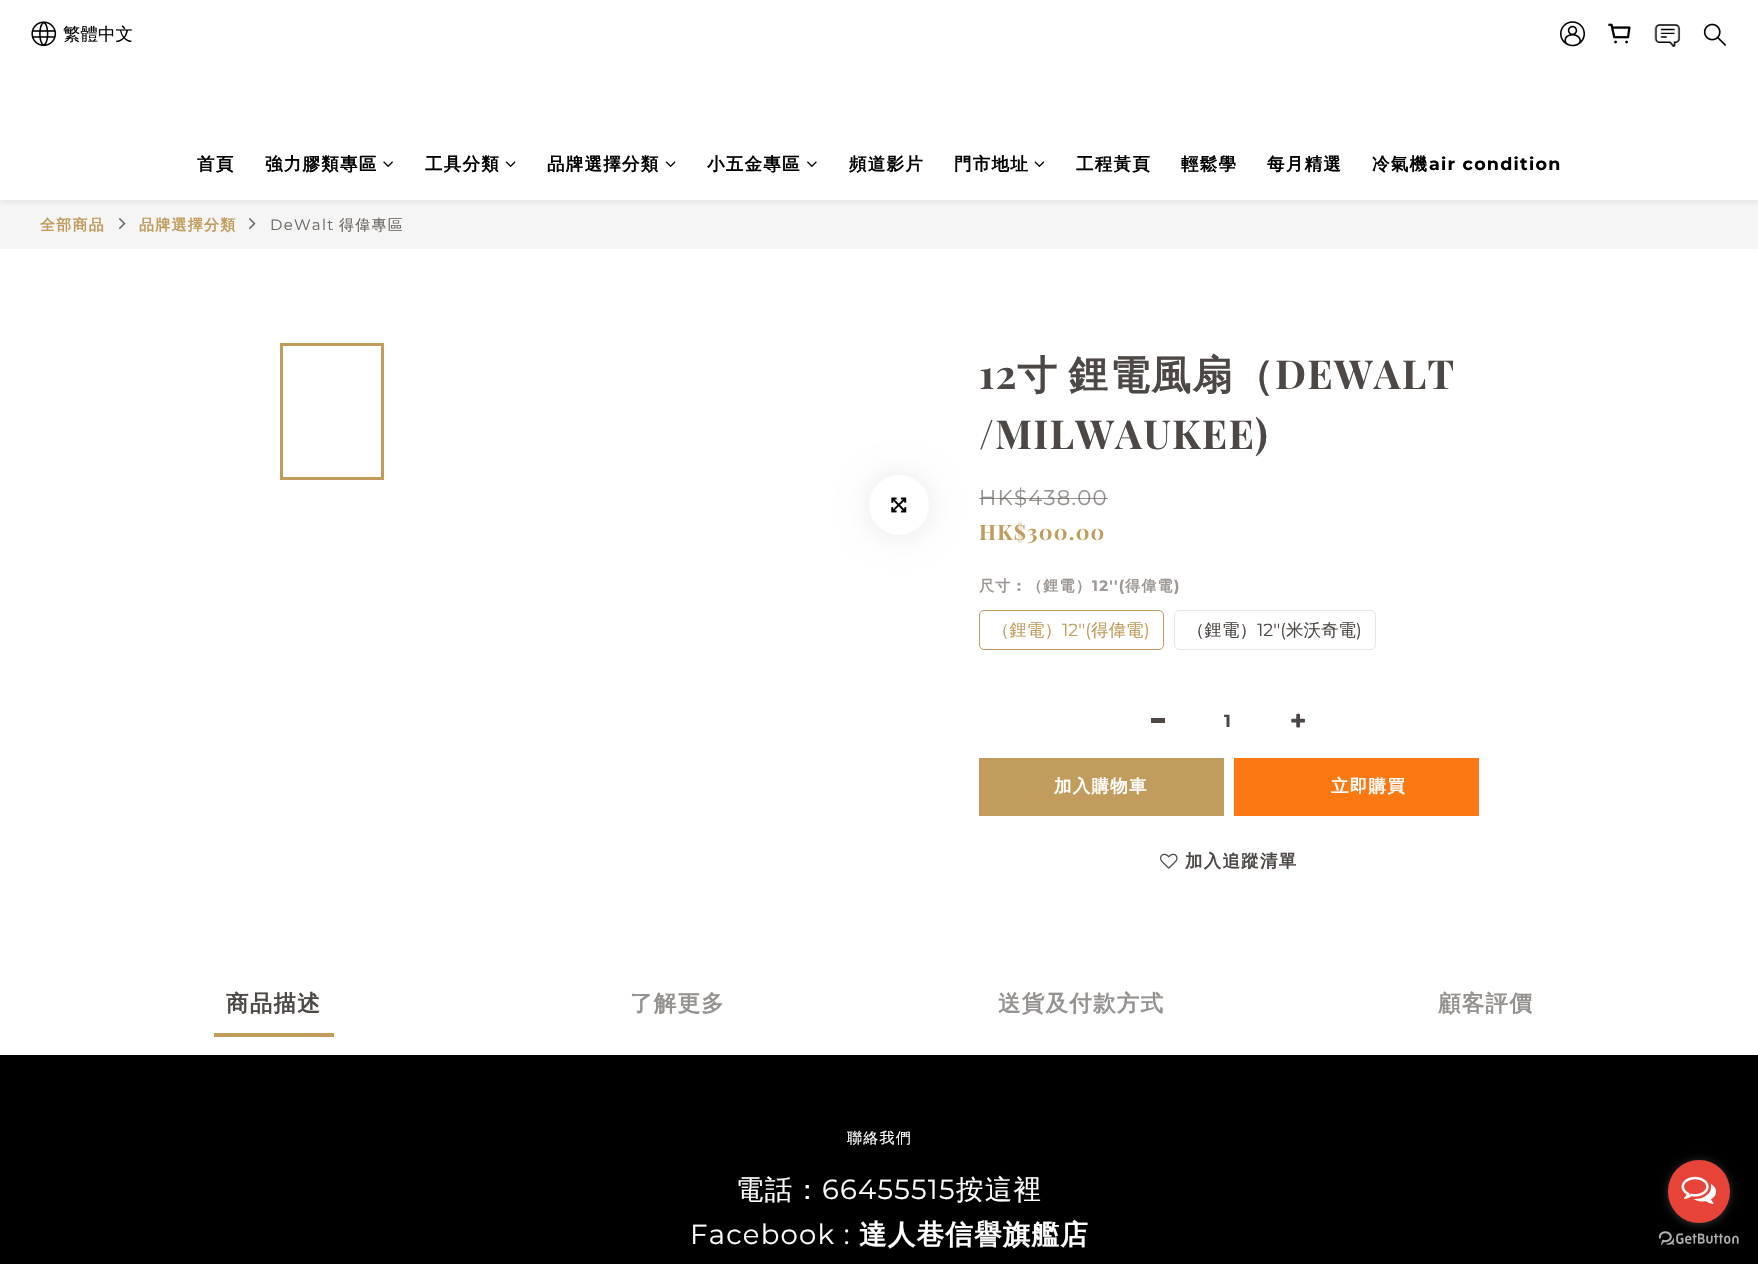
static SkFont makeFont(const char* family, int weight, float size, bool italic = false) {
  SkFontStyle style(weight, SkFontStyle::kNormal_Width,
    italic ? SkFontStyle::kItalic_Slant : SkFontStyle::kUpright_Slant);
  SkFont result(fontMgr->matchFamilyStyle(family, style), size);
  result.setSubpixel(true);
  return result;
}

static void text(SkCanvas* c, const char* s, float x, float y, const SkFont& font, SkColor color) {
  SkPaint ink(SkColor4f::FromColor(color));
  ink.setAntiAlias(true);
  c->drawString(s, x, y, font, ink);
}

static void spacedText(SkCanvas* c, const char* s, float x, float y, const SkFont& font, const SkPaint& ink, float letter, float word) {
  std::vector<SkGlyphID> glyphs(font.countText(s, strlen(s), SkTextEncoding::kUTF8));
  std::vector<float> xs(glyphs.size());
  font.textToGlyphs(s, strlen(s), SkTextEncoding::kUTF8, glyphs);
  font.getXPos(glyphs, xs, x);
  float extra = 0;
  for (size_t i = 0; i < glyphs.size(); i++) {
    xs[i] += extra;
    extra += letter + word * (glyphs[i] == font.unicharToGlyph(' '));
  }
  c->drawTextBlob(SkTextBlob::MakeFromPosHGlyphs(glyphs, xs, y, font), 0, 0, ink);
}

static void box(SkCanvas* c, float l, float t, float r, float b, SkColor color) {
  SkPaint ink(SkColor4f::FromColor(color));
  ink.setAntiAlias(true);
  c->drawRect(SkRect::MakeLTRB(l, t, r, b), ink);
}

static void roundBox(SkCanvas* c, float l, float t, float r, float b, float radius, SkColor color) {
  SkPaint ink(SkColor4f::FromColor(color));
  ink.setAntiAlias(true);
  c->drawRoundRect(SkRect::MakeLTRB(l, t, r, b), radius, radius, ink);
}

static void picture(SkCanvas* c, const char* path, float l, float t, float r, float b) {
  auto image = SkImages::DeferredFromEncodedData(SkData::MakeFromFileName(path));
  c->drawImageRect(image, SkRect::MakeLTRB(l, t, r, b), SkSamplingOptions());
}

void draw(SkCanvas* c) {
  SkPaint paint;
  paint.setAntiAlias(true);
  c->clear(0xffffffff);
  box(c, 0, 200, 1758, 249, 0xfff5f5f5);
  c->save();
  c->clipRect(SkRect::MakeLTRB(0, 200, 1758, 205));
  paint.setColor(0x0f000000);
  paint.setMaskFilter(SkMaskFilter::MakeBlur(kNormal_SkBlurStyle, 4));
  c->drawRect(SkRect::MakeLTRB(0, 3, 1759, 203), paint);
  paint.setMaskFilter(nullptr);
  c->restore();
  picture(c, "img_01.png", 31, 21, 57, 47);
  SkFont face1 = makeFont("WenQuanYi Zen Hei", 500, 17.5f);
  text(c, "繁體中文", 63, 40, face1, 0xff000000);
  picture(c, "img_02.png", 1560, 21, 1585, 47);
  picture(c, "img_03.png", 1608, 23, 1631, 44);
  picture(c, "img_04.png", 1654, 24, 1681, 47);
  picture(c, "img_05.png", 1703, 23, 1727, 46);
  SkFont face2 = makeFont("WenQuanYi Zen Hei", 700, 17.5f);
  paint.setColor(0xff000000);
  spacedText(c, "首頁", 197, 170, face2, paint, 1.25f, 0);
  spacedText(c, "強力膠類專區", 265, 170, face2, paint, 1.25f, 0);
  picture(c, "img_06.png", 383, 161, 393, 167);
  spacedText(c, "工具分類", 425, 170, face2, paint, 1.25f, 0);
  picture(c, "img_07.png", 505, 161, 516, 167);
  spacedText(c, "品牌選擇分類", 547, 170, face2, paint, 1.25f, 0);
  picture(c, "img_07.png", 665, 161, 676, 167);
  spacedText(c, "小五金專區", 707, 170, face2, paint, 1.25f, 0);
  picture(c, "img_08.png", 807, 161, 817, 167);
  spacedText(c, "頻道影片", 849, 170, face2, paint, 1.25f, 0);
  spacedText(c, "門市地址", 954, 170, face2, paint, 1.25f, 0);
  picture(c, "img_09.png", 1034, 161, 1045, 167);
  spacedText(c, "工程黃頁", 1076, 170, face2, paint, 1.25f, 0);
  spacedText(c, "輕鬆學", 1181, 170, face2, paint, 1.25f, 0);
  spacedText(c, "每月精選", 1267, 170, face2, paint, 1.25f, 0);
  spacedText(c, "冷氣機", 1372, 170, face2, paint, 1.25f, 0);
  SkFont face3 = makeFont("Montserrat", 700, 17.5f);
  spacedText(c, "air condition", 1429, 170, face3, paint, 1.25f, 0);
  SkFont face4 = makeFont("WenQuanYi Zen Hei", 700, 15);
  paint.setColor(0xffc19c5c);
  spacedText(c, "全部商品", 40, 230, face4, paint, 1.25f, 0);
  picture(c, "img_10.png", 119, 218, 126, 230);
  spacedText(c, "品牌選擇分類", 139, 230, face4, paint, 1.25f, 0);
  picture(c, "img_10.png", 249, 218, 256, 230);
  SkFont face5 = makeFont("Montserrat", 400, 15);
  paint.setColor(0xff6b6561);
  spacedText(c, "DeWalt", 270, 230, face5, paint, 1.25f, 0);
  SkFont face6 = makeFont("WenQuanYi Zen Hei", 500, 15);
  spacedText(c, "得偉專區", 339, 230, face6, paint, 1.25f, 0);
  paint.setStyle(SkPaint::kStroke_Style);
  paint.setStrokeWidth(3);
  paint.setColor(0xffc19c5c);
  c->drawRect(SkRect::MakeLTRB(281.5f, 344.5f, 382.5f, 478.5f), paint);
  paint.setStyle(SkPaint::kFill_Style);
  paint.setColor(0x17000000);
  paint.setMaskFilter(SkMaskFilter::MakeBlur(kNormal_SkBlurStyle, 15));
  c->drawRoundRect(SkRect::MakeLTRB(869, 476, 929, 536), 30, 30, paint);
  paint.setMaskFilter(nullptr);
  paint.setColor(0xffffffff);
  c->drawCircle(899, 505, 30, paint);
  picture(c, "img_11.png", 891, 497, 907, 513);
  SkFont face7 = makeFont("Playfair Display", 700, 40);
  paint.setColor(0xff4d4845);
  spacedText(c, "12", 979, 389, face7, paint, 1.25f, 0);
  SkFont face8 = makeFont("WenQuanYi Zen Hei", 700, 40);
  spacedText(c, "寸 鋰電風扇（", 1017, 389, face8, paint, 1.25f, -3);
  spacedText(c, "DEWALT", 1275, 389, face7, paint, 1.25f, 0);
  spacedText(c, "/MILWAUKEE)", 979, 449, face7, paint, 1.25f, 0);
  SkFont face9 = makeFont("Montserrat", 400, 21.25f);
  paint.setColor(0xff959290);
  spacedText(c, "HK$438.00", 979, 505, face9, paint, 1.25f, 0);
  box(c, 979, 498, 1108, 499, 0x994e4946);
  SkFont face10 = makeFont("Playfair Display", 700, 21.25f);
  paint.setColor(0xffc19c5c);
  spacedText(c, "HK$300.00", 979, 540, face10, paint, 1.25f, 0);
  paint.setColor(0xff9e9894);
  spacedText(c, "尺寸", 979, 591, face4, paint, 1.25f, 0);
  SkFont face11 = makeFont("Montserrat", 700, 15);
  spacedText(c, ":", 1017, 591, face11, paint, 1.25f, 0);
  spacedText(c, "（鋰電）", 1027, 591, face4, paint, 1.25f, 0);
  spacedText(c, "12''(", 1092, 591, face11, paint, 1.25f, 0);
  spacedText(c, "得偉電", 1125, 591, face4, paint, 1.25f, 0);
  spacedText(c, ")", 1174, 591, face11, paint, 1.25f, 0);
  paint.setStyle(SkPaint::kStroke_Style);
  paint.setStrokeWidth(1);
  paint.setColor(0xffc19c5c);
  c->drawRoundRect(SkRect::MakeLTRB(979.5f, 610.5f, 1163.5f, 649.5f), 4.5f, 4.5f, paint);
  text(c, "（鋰電）", 992, 636, face1, 0xffc19c5c);
  SkFont face12 = makeFont("Montserrat", 400, 17.5f);
  text(c, "12''(", 1062, 636, face12, 0xffc19c5c);
  text(c, "得偉電", 1091, 636, face1, 0xffc19c5c);
  text(c, ")", 1144, 636, face12, 0xffc19c5c);
  paint.setColor(0xffe6e6e6);
  c->drawRoundRect(SkRect::MakeLTRB(1174.5f, 610.5f, 1375.5f, 649.5f), 4.5f, 4.5f, paint);
  text(c, "（鋰電）", 1187, 636, face1, 0xff4d4845);
  text(c, "12''(", 1257, 636, face12, 0xff4d4845);
  text(c, "米沃奇電", 1286, 636, face1, 0xff4d4845);
  text(c, ")", 1356, 636, face12, 0xff4d4845);
  box(c, 1151, 718, 1165, 723, 0xff4d4845);
  paint.setStyle(SkPaint::kFill_Style);
  paint.setColor(0xff4d4845);
  spacedText(c, "1", 1224, 727, face3, paint, 1.25f, 0);
  picture(c, "img_12.png", 1291, 713, 1305, 728);
  box(c, 979, 758, 1224, 816, 0xffc19c5c);
  paint.setColor(0xffffffff);
  spacedText(c, "加入購物車", 1054, 792, face2, paint, 1.25f, 0);
  box(c, 1234, 758, 1479, 816, 0xfffb7813);
  spacedText(c, "立即購買", 1331, 792, face2, paint, 1.25f, 0);
  picture(c, "img_13.png", 1160, 853, 1178, 869);
  paint.setColor(0xff4d4845);
  spacedText(c, "加入追蹤清單", 1185, 867, face2, paint, 1.25f, 0);
  SkFont face13 = makeFont("WenQuanYi Zen Hei", 700, 22.5f);
  spacedText(c, "商品描述", 226, 1011, face13, paint, 1.25f, 0);
  box(c, 214, 1033, 334, 1037, 0xffc19c5c);
  paint.setColor(0xff959290);
  spacedText(c, "了解更多", 630, 1011, face13, paint, 1.25f, 0);
  spacedText(c, "送貨及付款方式", 998, 1011, face13, paint, 1.25f, 0);
  spacedText(c, "顧客評價", 1438, 1011, face13, paint, 1.25f, 0);
  box(c, 0, 1055, 1758, 1264, 0xff000000);
  paint.setColor(0xffffffff);
  spacedText(c, "聯絡我們", 847, 1143, face6, paint, 1.25f, 0);
  SkFont face14 = makeFont("WenQuanYi Zen Hei", 500, 27.5f);
  spacedText(c, "電話：", 736, 1199, face14, paint, 1.25f, 0);
  SkFont face15 = makeFont("Montserrat", 400, 27.5f);
  spacedText(c, "66455515", 822, 1199, face15, paint, 1.25f, 0);
  spacedText(c, "按這裡", 956, 1199, face14, paint, 1.25f, 0);
  spacedText(c, "Facebook :", 690, 1244, face15, paint, 1.25f, 0);
  SkFont face16 = makeFont("WenQuanYi Zen Hei", 700, 27.5f);
  spacedText(c, "達人巷信譽旗艦店", 859, 1244, face16, paint, 1.25f, 0);
  picture(c, "img_15.png", 1659, 1231, 1739, 1245);
  paint.setColor(0x66888888);
  paint.setMaskFilter(SkMaskFilter::MakeBlur(kNormal_SkBlurStyle, 4.5f));
  c->drawRoundRect(SkRect::MakeLTRB(1668, 1161, 1730, 1224), 31, 31, paint);
  paint.setMaskFilter(nullptr);
  roundBox(c, 1668, 1160, 1730, 1223, 31, 0xffe74339);
  picture(c, "img_14.png", 1681, 1176, 1716, 1204);
}
